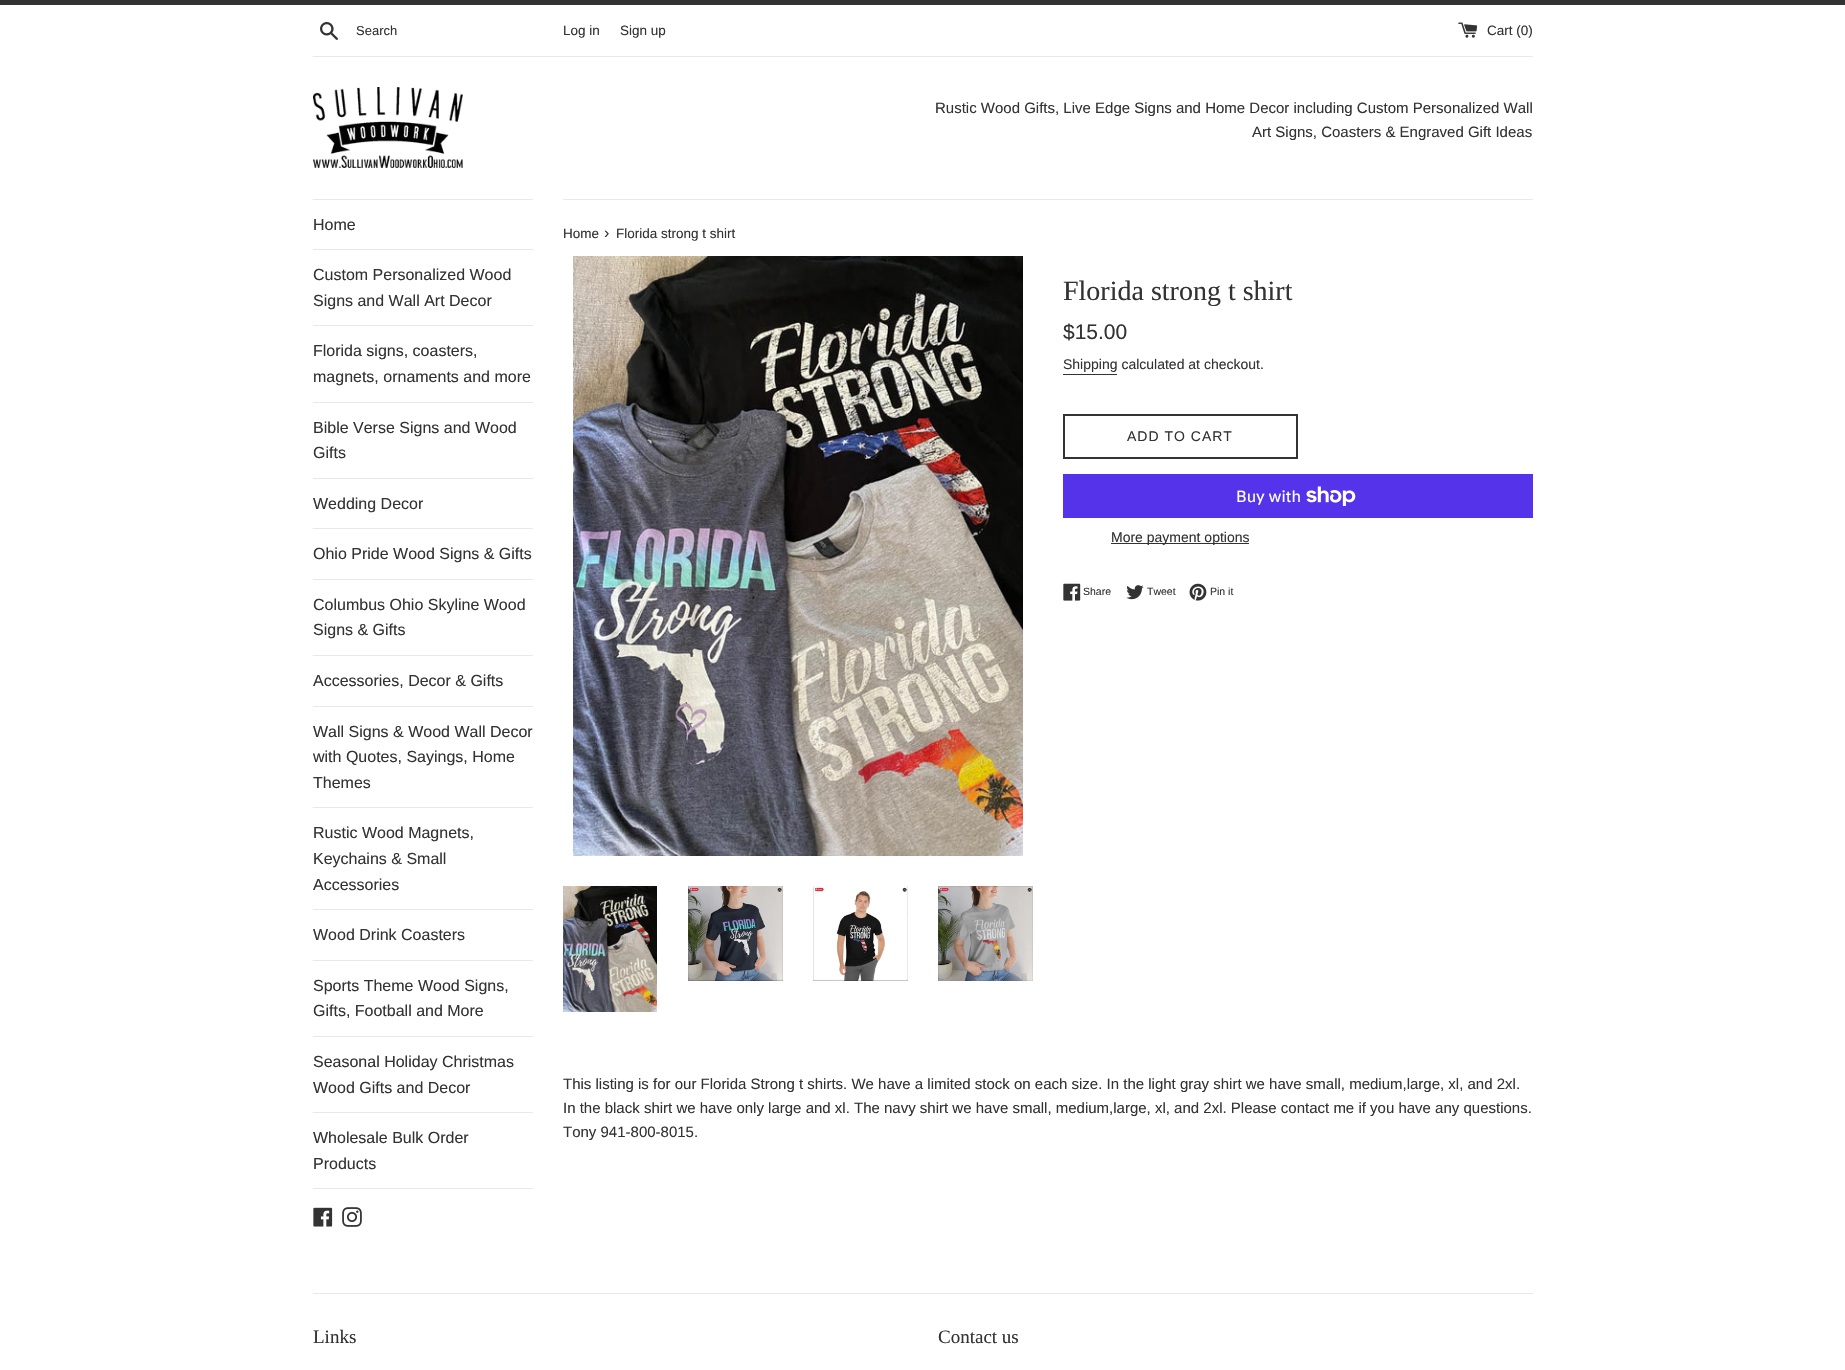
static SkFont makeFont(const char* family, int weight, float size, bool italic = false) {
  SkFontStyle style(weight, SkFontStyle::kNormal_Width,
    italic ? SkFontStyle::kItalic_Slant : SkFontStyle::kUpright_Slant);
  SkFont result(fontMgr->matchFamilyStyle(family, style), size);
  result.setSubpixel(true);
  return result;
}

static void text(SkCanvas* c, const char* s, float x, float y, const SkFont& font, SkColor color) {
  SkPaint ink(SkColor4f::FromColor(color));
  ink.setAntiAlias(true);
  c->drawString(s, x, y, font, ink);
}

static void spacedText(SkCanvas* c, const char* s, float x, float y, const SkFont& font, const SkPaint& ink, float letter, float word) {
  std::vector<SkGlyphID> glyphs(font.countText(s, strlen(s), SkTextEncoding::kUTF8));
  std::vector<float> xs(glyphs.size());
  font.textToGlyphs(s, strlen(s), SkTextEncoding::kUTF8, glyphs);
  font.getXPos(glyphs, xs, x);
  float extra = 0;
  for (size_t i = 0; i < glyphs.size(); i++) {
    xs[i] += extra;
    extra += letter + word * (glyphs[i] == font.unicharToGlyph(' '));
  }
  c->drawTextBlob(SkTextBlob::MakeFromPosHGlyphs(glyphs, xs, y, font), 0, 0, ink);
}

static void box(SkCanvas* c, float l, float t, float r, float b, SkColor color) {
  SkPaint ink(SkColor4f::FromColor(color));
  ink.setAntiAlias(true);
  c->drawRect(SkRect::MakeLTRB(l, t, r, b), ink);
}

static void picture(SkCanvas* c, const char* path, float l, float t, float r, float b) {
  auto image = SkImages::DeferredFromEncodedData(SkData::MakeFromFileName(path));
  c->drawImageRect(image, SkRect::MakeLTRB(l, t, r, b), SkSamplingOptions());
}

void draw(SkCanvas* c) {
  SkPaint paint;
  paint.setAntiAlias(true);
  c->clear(0xffffffff);
  box(c, 0, 0, 1845, 5, 0xff333333);
  picture(c, "img_01.png", 320, 22, 338, 40);
  SkFont face1 = makeFont("Liberation Sans", 400, 13);
  text(c, "Search", 356, 35, face1, 0xff333333);
  SkFont face2 = makeFont("Liberation Sans", 400, 13.5f);
  text(c, "Log in", 563, 35, face2, 0xff333333);
  text(c, "Sign up", 620, 35, face2, 0xff333333);
  picture(c, "img_02.png", 1458, 22, 1478, 38);
  text(c, "Cart (0)", 1487, 35, face2, 0xff333333);
  box(c, 313, 56, 1533, 57, 0xffe8e8e8);
  picture(c, "img_03.png", 313, 87, 463, 168);
  SkFont face3 = makeFont("Liberation Sans", 400, 15);
  text(c, "Rustic Wood Gifts, Live Edge Signs and Home Decor including Custom Personalized Wall", 935, 113, face3, 0xff333333);
  text(c, "Art Signs, Coasters & Engraved Gift Ideas", 1252, 137, face3, 0xff333333);
  box(c, 313, 199, 533, 200, 0xffe8e8e8);
  box(c, 313, 249, 533, 250, 0xffe8e8e8);
  SkFont face4 = makeFont("Liberation Sans", 400, 16);
  text(c, "Home", 313, 230, face4, 0xff333333);
  box(c, 313, 325, 533, 326, 0xffe8e8e8);
  text(c, "Custom Personalized Wood", 313, 280, face4, 0xff333333);
  text(c, "Signs and Wall Art Decor", 313, 306, face4, 0xff333333);
  box(c, 313, 402, 533, 403, 0xffe8e8e8);
  text(c, "Florida signs, coasters,", 313, 356, face4, 0xff333333);
  text(c, "magnets, ornaments and more", 313, 382, face4, 0xff333333);
  box(c, 313, 478, 533, 479, 0xffe8e8e8);
  text(c, "Bible Verse Signs and Wood", 313, 433, face4, 0xff333333);
  text(c, "Gifts", 313, 458, face4, 0xff333333);
  box(c, 313, 528, 533, 529, 0xffe8e8e8);
  text(c, "Wedding Decor", 313, 509, face4, 0xff333333);
  box(c, 313, 579, 533, 580, 0xffe8e8e8);
  text(c, "Ohio Pride Wood Signs & Gifts", 313, 559, face4, 0xff333333);
  box(c, 313, 655, 533, 656, 0xffe8e8e8);
  text(c, "Columbus Ohio Skyline Wood", 313, 610, face4, 0xff333333);
  text(c, "Signs & Gifts", 313, 635, face4, 0xff333333);
  box(c, 313, 706, 533, 707, 0xffe8e8e8);
  text(c, "Accessories, Decor & Gifts", 313, 686, face4, 0xff333333);
  box(c, 313, 807, 533, 808, 0xffe8e8e8);
  text(c, "Wall Signs & Wood Wall Decor", 313, 737, face4, 0xff333333);
  text(c, "with Quotes, Sayings, Home", 313, 762, face4, 0xff333333);
  text(c, "Themes", 313, 788, face4, 0xff333333);
  box(c, 313, 909, 533, 910, 0xffe8e8e8);
  text(c, "Rustic Wood Magnets,", 313, 838, face4, 0xff333333);
  text(c, "Keychains & Small", 313, 864, face4, 0xff333333);
  text(c, "Accessories", 313, 890, face4, 0xff333333);
  box(c, 313, 960, 533, 961, 0xffe8e8e8);
  text(c, "Wood Drink Coasters", 313, 940, face4, 0xff333333);
  box(c, 313, 1036, 533, 1037, 0xffe8e8e8);
  text(c, "Sports Theme Wood Signs,", 313, 991, face4, 0xff333333);
  text(c, "Gifts, Football and More", 313, 1016, face4, 0xff333333);
  box(c, 313, 1112, 533, 1113, 0xffe8e8e8);
  text(c, "Seasonal Holiday Christmas", 313, 1067, face4, 0xff333333);
  text(c, "Wood Gifts and Decor", 313, 1093, face4, 0xff333333);
  box(c, 313, 1188, 533, 1189, 0xffe8e8e8);
  text(c, "Wholesale Bulk Order", 313, 1143, face4, 0xff333333);
  text(c, "Products", 313, 1169, face4, 0xff333333);
  picture(c, "img_04.png", 313, 1207, 333, 1227);
  picture(c, "img_05.png", 342, 1207, 362, 1227);
  box(c, 563, 199, 1533, 200, 0xffe8e8e8);
  text(c, "Home", 563, 238, face2, 0xff333333);
  text(c, "›", 604, 238, face4, 0xff333333);
  text(c, "Florida strong t shirt", 616, 238, face2, 0xff333333);
  picture(c, "img_06.png", 573, 256, 1023, 856);
  picture(c, "img_07.png", 563, 886, 657, 1012);
  picture(c, "img_08.png", 688, 886, 783, 981);
  picture(c, "img_09.png", 813, 886, 908, 981);
  picture(c, "img_10.png", 938, 886, 1033, 981);
  SkFont face5 = makeFont("Liberation Serif", 400, 28);
  text(c, "Florida strong t shirt", 1063, 300, face5, 0xff333333);
  SkFont face6 = makeFont("Liberation Sans", 400, 21);
  text(c, "$15.00", 1063, 339, face6, 0xff333333);
  SkFont face7 = makeFont("Liberation Sans", 400, 14);
  text(c, "Shipping calculated at checkout.", 1063, 369, face7, 0xff333333);
  box(c, 1063, 374, 1117, 375, 0xff333333);
  paint.setStyle(SkPaint::kStroke_Style);
  paint.setStrokeWidth(2);
  paint.setColor(0xff333333);
  c->drawRect(SkRect::MakeLTRB(1064, 415, 1297, 458), paint);
  paint.setStyle(SkPaint::kFill_Style);
  spacedText(c, "ADD TO CART", 1127, 441, face7, paint, 1, 0);
  box(c, 1063, 474, 1533, 518, 0xff5433eb);
  SkFont face8 = makeFont("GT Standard", 400, 16);
  text(c, "Buy with", 1236, 502, face8, 0xffffffff);
  picture(c, "img_11.png", 1306, 486, 1356, 506);
  box(c, 1111, 543, 1249, 544, 0xff333333);
  text(c, "More payment options", 1111, 542, face7, 0xff333333);
  picture(c, "img_12.png", 1063, 583, 1081, 601);
  SkFont face9 = makeFont("Liberation Sans", 400, 10.5f);
  text(c, "Share", 1083, 595, face9, 0xff333333);
  picture(c, "img_13.png", 1126, 585, 1144, 600);
  text(c, "Tweet", 1147, 595, face9, 0xff333333);
  picture(c, "img_14.png", 1189, 583, 1207, 601);
  text(c, "Pin it", 1210, 595, face9, 0xff333333);
  text(c, "This listing is for our Florida Strong t shirts. We have a limited stock on each size. In the light gray shirt we have small, medium,large, xl, and 2xl.", 563, 1089, face3, 0xff333333);
  text(c, "In the black shirt we have only large and xl. The navy shirt we have small, medium,large, xl, and 2xl. Please contact me if you have any questions.", 563, 1113, face3, 0xff333333);
  text(c, "Tony 941-800-8015.", 563, 1137, face3, 0xff333333);
  box(c, 313, 1293, 1533, 1294, 0xffe8e8e8);
  SkFont face10 = makeFont("Liberation Serif", 400, 19);
  text(c, "Links", 313, 1343, face10, 0xff333333);
  text(c, "Contact us", 938, 1343, face10, 0xff333333);
}
